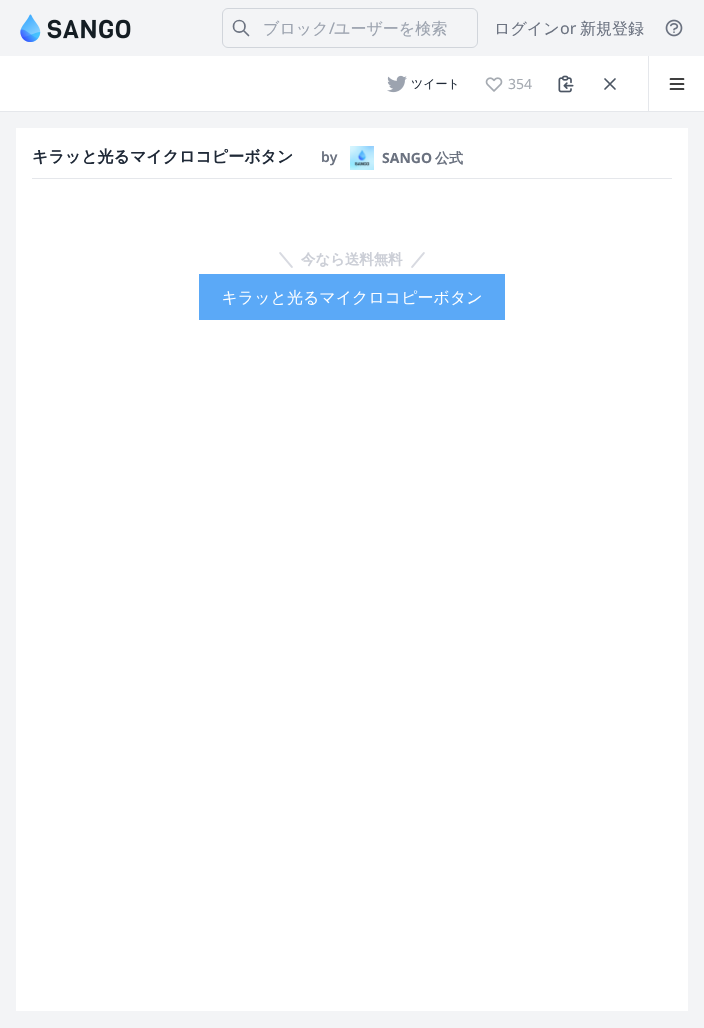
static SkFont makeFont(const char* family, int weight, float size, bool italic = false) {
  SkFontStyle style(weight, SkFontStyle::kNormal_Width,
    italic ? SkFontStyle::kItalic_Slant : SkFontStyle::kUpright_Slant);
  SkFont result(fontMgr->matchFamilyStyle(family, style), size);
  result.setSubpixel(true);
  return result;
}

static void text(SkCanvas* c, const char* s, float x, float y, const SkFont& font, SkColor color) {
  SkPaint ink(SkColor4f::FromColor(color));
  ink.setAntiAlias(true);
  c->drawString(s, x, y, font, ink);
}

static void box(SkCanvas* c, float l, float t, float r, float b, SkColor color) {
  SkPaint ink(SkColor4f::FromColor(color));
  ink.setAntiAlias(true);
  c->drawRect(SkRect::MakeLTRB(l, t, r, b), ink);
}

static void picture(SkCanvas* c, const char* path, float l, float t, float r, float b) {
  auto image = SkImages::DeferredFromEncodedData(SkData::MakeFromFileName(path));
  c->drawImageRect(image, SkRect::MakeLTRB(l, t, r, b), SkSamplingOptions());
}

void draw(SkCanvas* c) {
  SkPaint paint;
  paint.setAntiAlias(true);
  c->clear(0xfff3f4f6);
  picture(c, "img_01.png", 20, 14, 131, 42);
  paint.setStyle(SkPaint::kStroke_Style);
  paint.setStrokeWidth(1);
  paint.setColor(0xffd1d5db);
  c->drawRoundRect(SkRect::MakeLTRB(222.5f, 8.5f, 477.5f, 47.5f), 5.5f, 5.5f, paint);
  paint.setStrokeWidth(1.7f);
  paint.setStrokeCap(SkPaint::kRound_Cap);
  paint.setStrokeJoin(SkPaint::kRound_Join);
  paint.setColor(0xff6b7280);
  c->drawPath(SkPathBuilder().moveTo(248.5f, 35.5f).lineTo(243.5f, 30.5f).moveTo(245, 26.5f).cubicTo(245, 34, 233.5f, 34, 233.5f, 26.5f).cubicTo(233.5f, 18.5f, 245, 18.5f, 245, 26.5f).close().detach(), paint);
  SkFont face1 = makeFont("WenQuanYi Zen Hei", 500, 16);
  text(c, "ブロック", 263, 34, face1, 0xff9ca3af);
  SkFont face2 = makeFont("Noto Sans", 400, 16);
  text(c, "/", 329, 34, face2, 0xff9ca3af);
  text(c, "ユーザーを検索", 334, 34, face1, 0xff9ca3af);
  text(c, "ログイン", 494, 34, face1, 0xff6b7280);
  text(c, "or", 560, 34, face2, 0xff6b7280);
  text(c, "新規登録", 580, 34, face1, 0xff6b7280);
  picture(c, "img_02.png", 665, 19, 683, 37);
  box(c, 0, 56, 704, 111, 0xffffffff);
  box(c, 0, 111, 704, 112, 0xffe5e7eb);
  picture(c, "img_03.png", 387, 75, 407, 93);
  SkFont face3 = makeFont("WenQuanYi Zen Hei", 500, 12);
  text(c, "ツイート", 411, 88, face3, 0xff1f2937);
  picture(c, "img_04.png", 485, 77, 503, 92);
  SkFont face4 = makeFont("Noto Sans", 400, 14);
  text(c, "354", 508, 89, face4, 0xffa5aab1);
  picture(c, "img_05.png", 558, 75, 574, 93);
  paint.setColor(0xff4b5563);
  c->drawPath(SkPathBuilder().moveTo(605, 89).lineTo(615, 79).moveTo(605, 79).lineTo(615, 89).detach(), paint);
  box(c, 648, 56, 649, 112, 0xffe5e7eb);
  paint.setColor(0xff000000);
  c->drawPath(SkPathBuilder().moveTo(670.5f, 79).lineTo(683.5f, 79).moveTo(670.5f, 84).lineTo(683.5f, 84).moveTo(670.5f, 89).lineTo(683.5f, 89).detach(), paint);
  box(c, 16, 128, 688, 1011, 0xffffffff);
  box(c, 32, 178, 672, 179, 0xffe5e7eb);
  SkFont face5 = makeFont("WenQuanYi Zen Hei", 700, 16);
  text(c, "キラッと光るマイクロコピーボタン", 32, 162, face5, 0xff1f2937);
  SkFont face6 = makeFont("Noto Sans", 600, 14);
  text(c, "by", 321, 162, face6, 0xff6b7280);
  picture(c, "img_06.png", 350, 146, 374, 170);
  SkFont face7 = makeFont("Noto Sans", 700, 14);
  text(c, "SANGO", 382, 163, face7, 0xff6b7280);
  SkFont face8 = makeFont("WenQuanYi Zen Hei", 700, 14);
  text(c, "公式", 435, 163, face8, 0xff6b7280);
  picture(c, "img_07.png", 199, 252, 505, 320);
}
